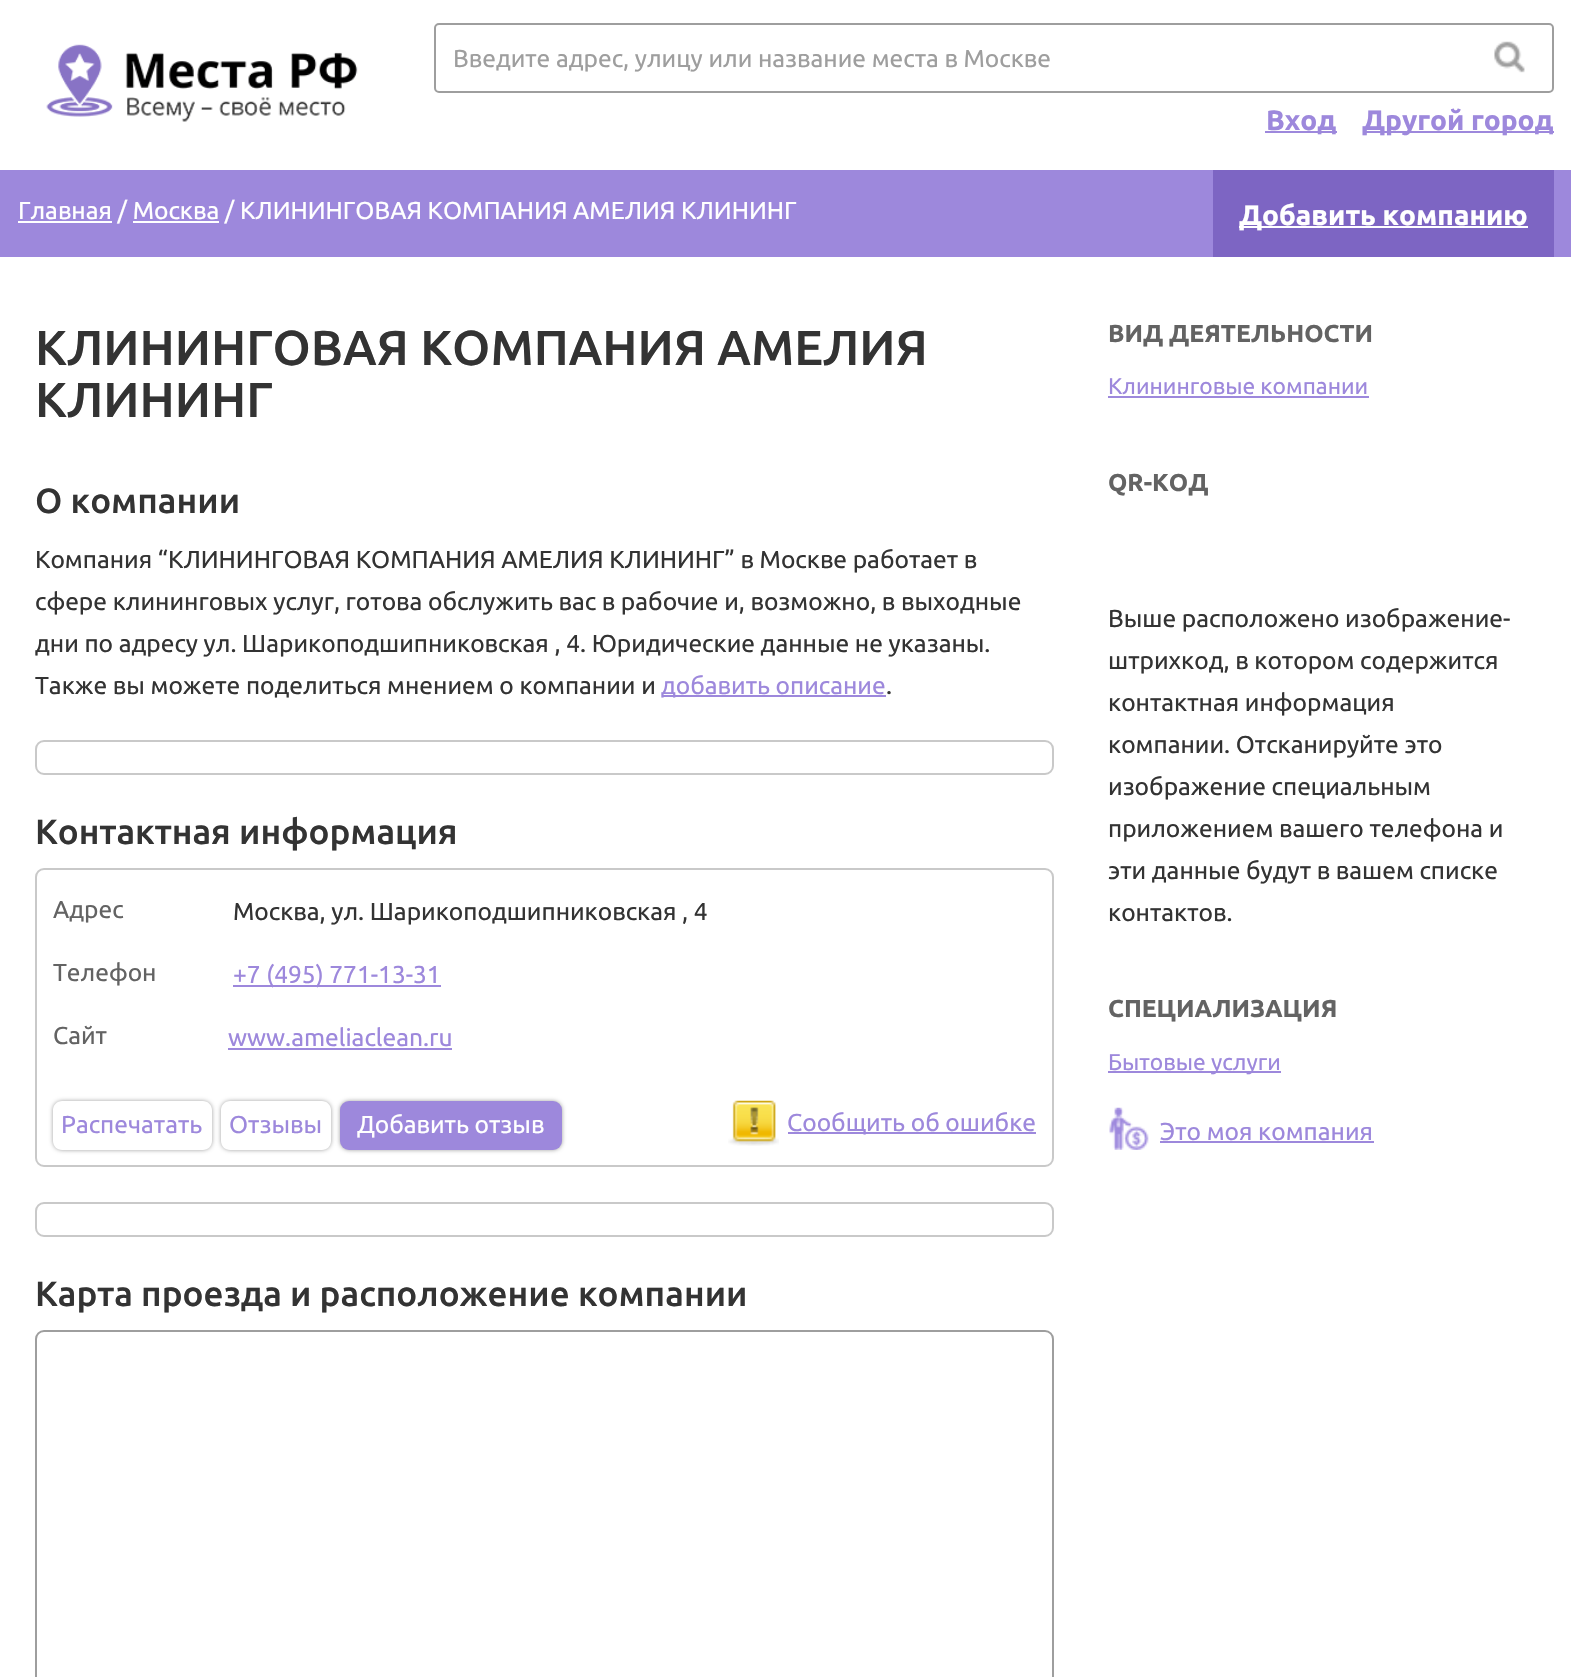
static SkFont makeFont(const char* family, int weight, float size, bool italic = false) {
  SkFontStyle style(weight, SkFontStyle::kNormal_Width,
    italic ? SkFontStyle::kItalic_Slant : SkFontStyle::kUpright_Slant);
  SkFont result(fontMgr->matchFamilyStyle(family, style), size);
  result.setSubpixel(true);
  return result;
}

static void text(SkCanvas* c, const char* s, float x, float y, const SkFont& font, SkColor color) {
  SkPaint ink(SkColor4f::FromColor(color));
  ink.setAntiAlias(true);
  c->drawString(s, x, y, font, ink);
}

static void box(SkCanvas* c, float l, float t, float r, float b, SkColor color) {
  SkPaint ink(SkColor4f::FromColor(color));
  ink.setAntiAlias(true);
  c->drawRect(SkRect::MakeLTRB(l, t, r, b), ink);
}

static void roundBox(SkCanvas* c, float l, float t, float r, float b, float radius, SkColor color) {
  SkPaint ink(SkColor4f::FromColor(color));
  ink.setAntiAlias(true);
  c->drawRoundRect(SkRect::MakeLTRB(l, t, r, b), radius, radius, ink);
}

static void picture(SkCanvas* c, const char* path, float l, float t, float r, float b) {
  auto image = SkImages::DeferredFromEncodedData(SkData::MakeFromFileName(path));
  c->drawImageRect(image, SkRect::MakeLTRB(l, t, r, b), SkSamplingOptions());
}

void draw(SkCanvas* c) {
  SkPaint paint;
  paint.setAntiAlias(true);
  c->clear(0xffffffff);
  picture(c, "img_01.png", 46, 44, 358, 122);
  paint.setStyle(SkPaint::kStroke_Style);
  paint.setStrokeWidth(2);
  paint.setColor(0xff9e9e9e);
  c->drawRoundRect(SkRect::MakeLTRB(435, 24, 1553, 92), 4, 4, paint);
  SkFont face1 = makeFont("Ubuntu", 400, 24.5f);
  text(c, "Введите адрес, улицу или название места в Москве", 453, 67, face1, 0xff9e9e9e);
  picture(c, "img_02.png", 1494, 41, 1525, 73);
  box(c, 1265, 131, 1337, 133, 0xff9d88dc);
  SkFont face2 = makeFont("Ubuntu", 700, 28);
  text(c, "Вход", 1266, 130, face2, 0xff9d88dc);
  box(c, 1363, 131, 1554, 133, 0xff9d88dc);
  text(c, "Другой город", 1362, 130, face2, 0xff9d88dc);
  box(c, 0, 170, 1571, 257, 0xff9d88dc);
  box(c, 18, 221, 112, 223, 0xffffffff);
  text(c, "Главная / Москва / КЛИНИНГОВАЯ КОМПАНИЯ АМЕЛИЯ КЛИНИНГ", 18, 219, face1, 0xffffffff);
  box(c, 133, 221, 219, 223, 0xffffffff);
  box(c, 1213, 170, 1554, 257, 0xff7d65c3);
  box(c, 1239, 226, 1528, 228, 0xffffffff);
  text(c, "Добавить компанию", 1239, 225, face2, 0xffffffff);
  SkFont face3 = makeFont("Ubuntu", 500, 49);
  text(c, "КЛИНИНГОВАЯ КОМПАНИЯ АМЕЛИЯ", 35, 365, face3, 0xff333333);
  text(c, "КЛИНИНГ", 35, 417, face3, 0xff333333);
  SkFont face4 = makeFont("Ubuntu", 500, 35);
  text(c, "О компании", 35, 513, face4, 0xff333333);
  text(c, "Компания “КЛИНИНГОВАЯ КОМПАНИЯ АМЕЛИЯ КЛИНИНГ” в Москве работает в", 35, 568, face1, 0xff333333);
  text(c, "сфере клининговых услуг, готова обслужить вас в рабочие и, возможно, в выходные", 35, 610, face1, 0xff333333);
  text(c, "дни по адресу ул. Шарикоподшипниковская , 4. Юридические данные не указаны.", 35, 652, face1, 0xff333333);
  text(c, "Также вы можете поделиться мнением о компании и", 35, 694, face1, 0xff333333);
  box(c, 662, 695, 886, 697, 0xff9d88dc);
  text(c, "добавить описание", 661, 694, face1, 0xff9d88dc);
  text(c, ".", 886, 694, face1, 0xff333333);
  paint.setColor(0xffc9c9c9);
  c->drawRoundRect(SkRect::MakeLTRB(36, 741, 1053, 774), 8, 8, paint);
  text(c, "Контактная информация", 35, 844, face4, 0xff333333);
  c->drawRoundRect(SkRect::MakeLTRB(36, 869, 1053, 1166), 8, 8, paint);
  text(c, "Адрес", 53, 918, face1, 0xff636363);
  text(c, "Москва, ул. Шарикоподшипниковская , 4", 233, 920, face1, 0xff333333);
  text(c, "Телефон", 53, 981, face1, 0xff636363);
  box(c, 233, 985, 441, 987, 0xff9d88dc);
  text(c, "+7 (495) 771-13-31", 233, 983, face1, 0xff9d88dc);
  text(c, "Сайт", 53, 1044, face1, 0xff636363);
  text(c, "www.ameliaclean.ru", 228, 1046, face1, 0xff9d88dc);
  box(c, 228, 1048, 452, 1050, 0xff9d88dc);
  c->save();
  c->clipPath(SkPathBuilder(SkPathFillType::kEvenOdd).moveTo(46, 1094).lineTo(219, 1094).lineTo(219, 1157).lineTo(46, 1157).close().moveTo(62, 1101).lineTo(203, 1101).cubicTo(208, 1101, 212, 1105, 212, 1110).lineTo(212, 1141).cubicTo(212, 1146, 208, 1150, 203, 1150).lineTo(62, 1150).cubicTo(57, 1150, 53, 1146, 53, 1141).lineTo(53, 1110).cubicTo(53, 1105, 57, 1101, 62, 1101).close().detach(), true);
  paint.setStyle(SkPaint::kFill_Style);
  paint.setColor(0xff9e9e9e);
  paint.setMaskFilter(SkMaskFilter::MakeBlur(kNormal_SkBlurStyle, 2));
  c->drawRoundRect(SkRect::MakeLTRB(53, 1101, 212, 1150), 9, 9, paint);
  paint.setMaskFilter(nullptr);
  c->restore();
  text(c, "Распечатать", 61, 1133, face1, 0xff9d88dc);
  c->save();
  c->clipPath(SkPathBuilder(SkPathFillType::kEvenOdd).moveTo(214, 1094).lineTo(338, 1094).lineTo(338, 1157).lineTo(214, 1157).close().moveTo(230, 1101).lineTo(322, 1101).cubicTo(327, 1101, 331, 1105, 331, 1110).lineTo(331, 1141).cubicTo(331, 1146, 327, 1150, 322, 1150).lineTo(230, 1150).cubicTo(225, 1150, 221, 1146, 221, 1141).lineTo(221, 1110).cubicTo(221, 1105, 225, 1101, 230, 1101).close().detach(), true);
  paint.setMaskFilter(SkMaskFilter::MakeBlur(kNormal_SkBlurStyle, 2));
  c->drawRoundRect(SkRect::MakeLTRB(221, 1101, 331, 1150), 9, 9, paint);
  paint.setMaskFilter(nullptr);
  c->restore();
  text(c, "Отзывы", 229, 1133, face1, 0xff9d88dc);
  paint.setMaskFilter(SkMaskFilter::MakeBlur(kNormal_SkBlurStyle, 2));
  c->drawRoundRect(SkRect::MakeLTRB(340, 1101, 562, 1150), 9, 9, paint);
  paint.setMaskFilter(nullptr);
  roundBox(c, 340, 1101, 562, 1150, 9, 0xff9d88dc);
  text(c, "Добавить отзыв", 357, 1133, face1, 0xffffffff);
  picture(c, "img_03.png", 728, 1100, 779, 1146);
  box(c, 788, 1132, 1036, 1134, 0xff9d88dc);
  text(c, "Сообщить об ошибке", 787, 1131, face1, 0xff9d88dc);
  paint.setStyle(SkPaint::kStroke_Style);
  paint.setColor(0xffc9c9c9);
  c->drawRoundRect(SkRect::MakeLTRB(36, 1203, 1053, 1236), 8, 8, paint);
  text(c, "Карта проезда и расположение компании", 35, 1306, face4, 0xff333333);
  paint.setColor(0xff9e9e9e);
  c->drawRoundRect(SkRect::MakeLTRB(36, 1331, 1053, 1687), 8, 8, paint);
  SkFont face5 = makeFont("Ubuntu", 700, 24.5f);
  text(c, "ВИД ДЕЯТЕЛЬНОСТИ", 1108, 342, face5, 0xff636363);
  SkFont face6 = makeFont("Ubuntu", 400, 22.75f);
  text(c, "Клининговые компании", 1108, 394, face6, 0xff9d88dc);
  box(c, 1108, 396, 1369, 398, 0xff9d88dc);
  text(c, "QR-КОД", 1108, 491, face5, 0xff636363);
  text(c, "Выше расположено изображение-", 1108, 627, face1, 0xff333333);
  text(c, "штрихкод, в котором содержится", 1108, 669, face1, 0xff333333);
  text(c, "контактная информация", 1108, 711, face1, 0xff333333);
  text(c, "компании. Отсканируйте это", 1108, 753, face1, 0xff333333);
  text(c, "изображение специальным", 1108, 795, face1, 0xff333333);
  text(c, "приложением вашего телефона и", 1108, 837, face1, 0xff333333);
  text(c, "эти данные будут в вашем списке", 1108, 879, face1, 0xff333333);
  text(c, "контактов.", 1108, 921, face1, 0xff333333);
  text(c, "СПЕЦИАЛИЗАЦИЯ", 1108, 1017, face5, 0xff636363);
  box(c, 1108, 1071, 1281, 1073, 0xff9d88dc);
  text(c, "Бытовые услуги", 1108, 1070, face6, 0xff9d88dc);
  picture(c, "img_04.png", 1109, 1107, 1149, 1150);
  text(c, "Это моя компания", 1160, 1140, face1, 0xff9d88dc);
  box(c, 1160, 1141, 1374, 1143, 0xff9d88dc);
}
